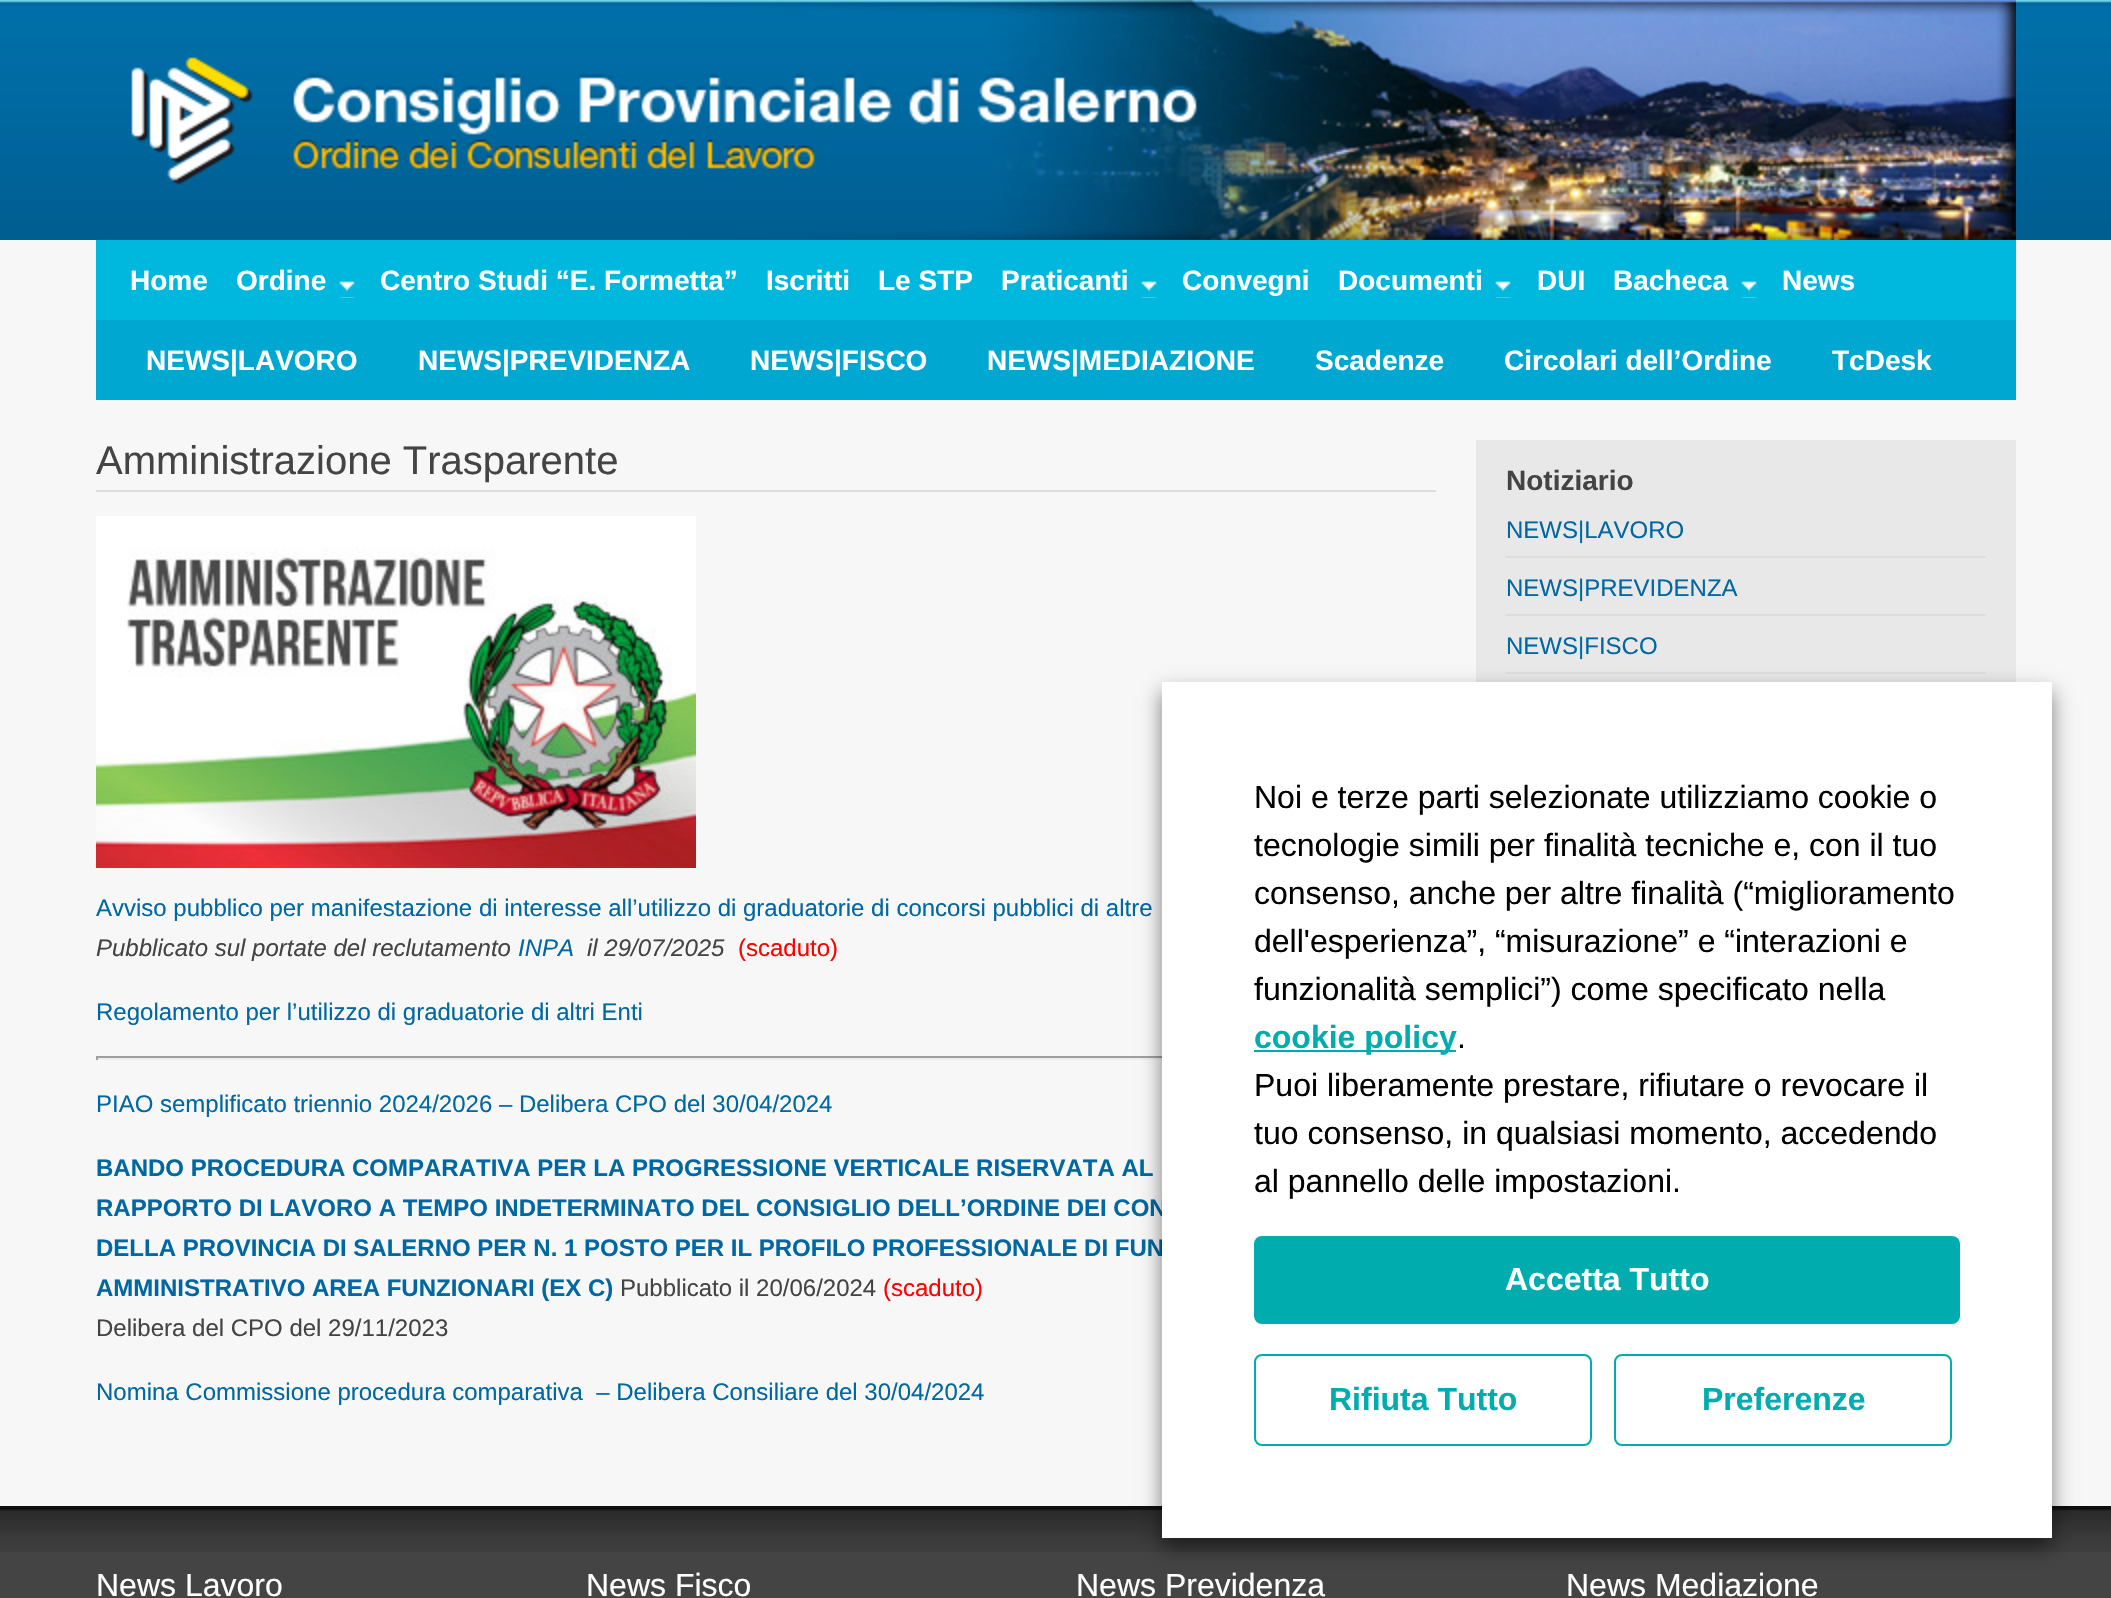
static SkFont makeFont(const char* family, int weight, float size, bool italic = false) {
  SkFontStyle style(weight, SkFontStyle::kNormal_Width,
    italic ? SkFontStyle::kItalic_Slant : SkFontStyle::kUpright_Slant);
  SkFont result(fontMgr->matchFamilyStyle(family, style), size);
  result.setSubpixel(true);
  return result;
}

static void text(SkCanvas* c, const char* s, float x, float y, const SkFont& font, SkColor color) {
  SkPaint ink(SkColor4f::FromColor(color));
  ink.setAntiAlias(true);
  c->drawString(s, x, y, font, ink);
}

static void box(SkCanvas* c, float l, float t, float r, float b, SkColor color) {
  SkPaint ink(SkColor4f::FromColor(color));
  ink.setAntiAlias(true);
  c->drawRect(SkRect::MakeLTRB(l, t, r, b), ink);
}

static void roundBox(SkCanvas* c, float l, float t, float r, float b, float radius, SkColor color) {
  SkPaint ink(SkColor4f::FromColor(color));
  ink.setAntiAlias(true);
  c->drawRoundRect(SkRect::MakeLTRB(l, t, r, b), radius, radius, ink);
}

static void picture(SkCanvas* c, const char* path, float l, float t, float r, float b) {
  auto image = SkImages::DeferredFromEncodedData(SkData::MakeFromFileName(path));
  c->drawImageRect(image, SkRect::MakeLTRB(l, t, r, b), SkSamplingOptions());
}

void draw(SkCanvas* c) {
  SkPaint paint;
  paint.setAntiAlias(true);
  c->clear(0xfff7f7f7);
  picture(c, "img_01.png", 0, 0, 2111, 240);
  picture(c, "img_02.png", 131, 0, 2016, 240);
  box(c, 96, 240, 2016, 320, 0xff00b8de);
  SkFont face1 = makeFont("Liberation Sans", 700, 28);
  text(c, "Home", 130, 290, face1, 0xffffffff);
  text(c, "Ordine", 236, 290, face1, 0xffffffff);
  picture(c, "img_03.png", 339, 281, 355, 298);
  text(c, "Centro Studi “E. Formetta”", 380, 290, face1, 0xffffffff);
  text(c, "Iscritti", 766, 290, face1, 0xffffffff);
  text(c, "Le STP", 878, 290, face1, 0xffffffff);
  text(c, "Praticanti", 1001, 290, face1, 0xffffffff);
  picture(c, "img_03.png", 1141, 281, 1157, 298);
  text(c, "Convegni", 1182, 290, face1, 0xffffffff);
  text(c, "Documenti", 1338, 290, face1, 0xffffffff);
  picture(c, "img_03.png", 1495, 281, 1511, 298);
  text(c, "DUI", 1537, 290, face1, 0xffffffff);
  text(c, "Bacheca", 1613, 290, face1, 0xffffffff);
  picture(c, "img_03.png", 1741, 281, 1757, 298);
  text(c, "News", 1782, 290, face1, 0xffffffff);
  box(c, 96, 320, 2016, 400, 0xff00a8d1);
  text(c, "NEWS|LAVORO", 146, 370, face1, 0xffffffff);
  text(c, "NEWS|PREVIDENZA", 418, 370, face1, 0xffffffff);
  text(c, "NEWS|FISCO", 750, 370, face1, 0xffffffff);
  text(c, "NEWS|MEDIAZIONE", 987, 370, face1, 0xffffffff);
  text(c, "Scadenze", 1315, 370, face1, 0xffffffff);
  text(c, "Circolari dell’Ordine", 1504, 370, face1, 0xffffffff);
  text(c, "TcDesk", 1832, 370, face1, 0xffffffff);
  box(c, 96, 490, 1436, 492, 0xffdddddd);
  SkFont face2 = makeFont("Liberation Sans", 400, 40);
  text(c, "Amministrazione Trasparente", 96, 474, face2, 0xff444444);
  picture(c, "img_04.png", 96, 516, 696, 868);
  SkFont face3 = makeFont("Liberation Sans", 400, 24);
  text(c, "Avviso pubblico per manifestazione di interesse all’utilizzo di graduatorie di concorsi pubblici di altre", 96, 916, face3, 0xff0067a2);
  SkFont face4 = makeFont("Liberation Sans", 400, 24, true);
  text(c, "Pubblicato sul portate del reclutamento", 96, 956, face4, 0xff444444);
  text(c, "INPA", 518, 956, face4, 0xff0067a2);
  text(c, "il 29/07/2025", 587, 956, face4, 0xff444444);
  text(c, "(scaduto)", 738, 956, face3, 0xffff0000);
  text(c, "Regolamento per l’utilizzo di graduatorie di altri Enti", 96, 1020, face3, 0xff0067a2);
  box(c, 96, 1056, 1162, 1058, 0xff9f9f9f);
  box(c, 96, 1058, 1162, 1060, 0xffeeeeee);
  box(c, 96, 1056, 98, 1060, 0xff9f9f9f);
  text(c, "PIAO semplificato triennio 2024/2026 – Delibera CPO del 30/04/2024", 96, 1112, face3, 0xff0067a2);
  SkFont face5 = makeFont("Liberation Sans", 700, 24);
  text(c, "BANDO PROCEDURA COMPARATIVA PER LA PROGRESSIONE VERTICALE RISERVATA AL", 96, 1176, face5, 0xff0067a2);
  text(c, "RAPPORTO DI LAVORO A TEMPO INDETERMINATO DEL CONSIGLIO DELL’ORDINE DEI CON", 96, 1216, face5, 0xff0067a2);
  text(c, "DELLA PROVINCIA DI SALERNO PER N. 1 POSTO PER IL PROFILO PROFESSIONALE DI FUN", 96, 1256, face5, 0xff0067a2);
  text(c, "AMMINISTRATIVO AREA FUNZIONARI (EX C)", 96, 1296, face5, 0xff0067a2);
  text(c, "Pubblicato il 20/06/2024", 620, 1296, face3, 0xff444444);
  text(c, "(scaduto)", 883, 1296, face3, 0xffff0000);
  text(c, "Delibera del CPO del 29/11/2023", 96, 1336, face3, 0xff444444);
  text(c, "Nomina Commissione procedura comparativa  – Delibera Consiliare del 30/04/2024", 96, 1400, face3, 0xff0067a2);
  box(c, 1476, 440, 2016, 682, 0xffe8e8e8);
  text(c, "Notiziario", 1506, 490, face1, 0xff444444);
  box(c, 1506, 556, 1986, 558, 0xffdddddd);
  text(c, "NEWS|LAVORO", 1506, 538, face3, 0xff0067a2);
  box(c, 1506, 614, 1986, 616, 0xffdddddd);
  text(c, "NEWS|PREVIDENZA", 1506, 596, face3, 0xff0067a2);
  box(c, 1506, 672, 1986, 674, 0xffdddddd);
  text(c, "NEWS|FISCO", 1506, 654, face3, 0xff0067a2);
  box(c, 0, 1552, 2111, 1598, 0xff444444);
  picture(c, "img_05.png", 0, 1506, 2111, 1552);
  SkFont face6 = makeFont("Liberation Sans", 400, 32);
  text(c, "News Lavoro", 96, 1596, face6, 0xffffffff);
  text(c, "News Fisco", 586, 1596, face6, 0xffffffff);
  text(c, "News Previdenza", 1076, 1596, face6, 0xffffffff);
  text(c, "News Mediazione", 1566, 1596, face6, 0xffffffff);
  paint.setColor(0x80000000);
  paint.setMaskFilter(SkMaskFilter::MakeBlur(kNormal_SkBlurStyle, 10));
  c->drawRect(SkRect::MakeLTRB(1162, 692, 2052, 1548), paint);
  paint.setMaskFilter(nullptr);
  box(c, 1162, 682, 2052, 1538, 0xffffffff);
  text(c, "Noi e terze parti selezionate utilizziamo cookie o", 1254, 808, face6, 0xff000000);
  text(c, "tecnologie simili per finalità tecniche e, con il tuo", 1254, 856, face6, 0xff000000);
  text(c, "consenso, anche per altre finalità (“miglioramento", 1254, 904, face6, 0xff000000);
  text(c, "dell'esperienza”, “misurazione” e “interazioni e", 1254, 952, face6, 0xff000000);
  text(c, "funzionalità semplici”) come specificato nella", 1254, 1000, face6, 0xff000000);
  box(c, 1254, 1050, 1456, 1052, 0xff00acad);
  SkFont face7 = makeFont("Liberation Sans", 700, 32);
  text(c, "cookie policy", 1254, 1048, face7, 0xff00acad);
  text(c, ".", 1457, 1048, face6, 0xff000000);
  text(c, "Puoi liberamente prestare, rifiutare o revocare il", 1254, 1096, face6, 0xff000000);
  text(c, "tuo consenso, in qualsiasi momento, accedendo", 1254, 1144, face6, 0xff000000);
  text(c, "al pannello delle impostazioni.", 1254, 1192, face6, 0xff000000);
  roundBox(c, 1254, 1236, 1960, 1324, 8, 0xff00acad);
  text(c, "Accetta Tutto", 1505, 1290, face7, 0xffffffff);
  paint.setStyle(SkPaint::kStroke_Style);
  paint.setStrokeWidth(2);
  paint.setColor(0xff00acad);
  c->drawRoundRect(SkRect::MakeLTRB(1255, 1355, 1591, 1445), 7, 7, paint);
  text(c, "Rifiuta Tutto", 1329, 1410, face7, 0xff00acad);
  c->drawRoundRect(SkRect::MakeLTRB(1615, 1355, 1951, 1445), 7, 7, paint);
  text(c, "Preferenze", 1702, 1410, face7, 0xff00acad);
}
